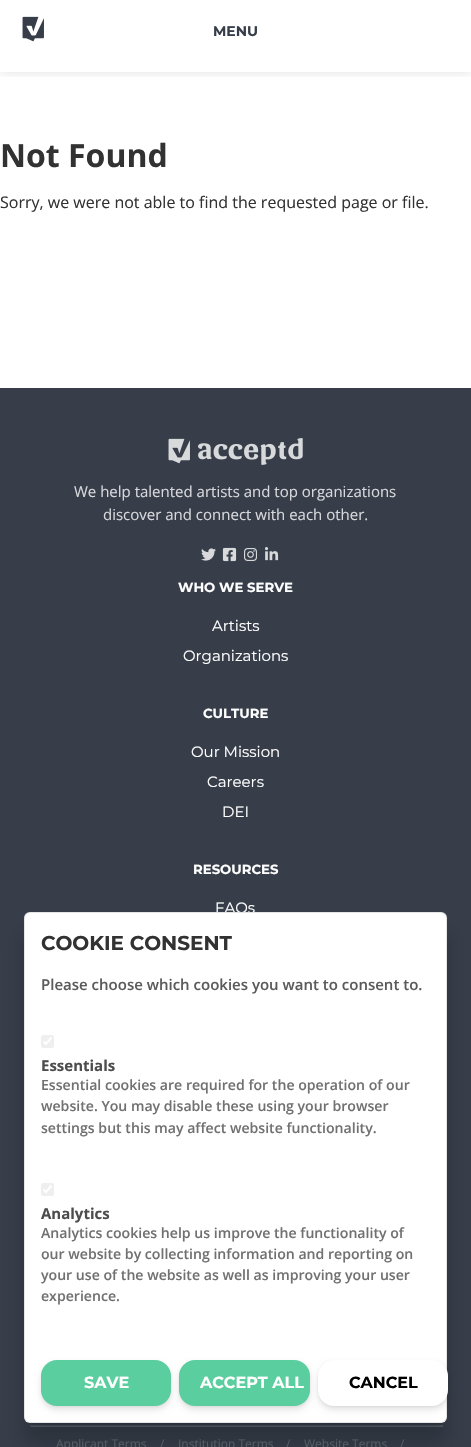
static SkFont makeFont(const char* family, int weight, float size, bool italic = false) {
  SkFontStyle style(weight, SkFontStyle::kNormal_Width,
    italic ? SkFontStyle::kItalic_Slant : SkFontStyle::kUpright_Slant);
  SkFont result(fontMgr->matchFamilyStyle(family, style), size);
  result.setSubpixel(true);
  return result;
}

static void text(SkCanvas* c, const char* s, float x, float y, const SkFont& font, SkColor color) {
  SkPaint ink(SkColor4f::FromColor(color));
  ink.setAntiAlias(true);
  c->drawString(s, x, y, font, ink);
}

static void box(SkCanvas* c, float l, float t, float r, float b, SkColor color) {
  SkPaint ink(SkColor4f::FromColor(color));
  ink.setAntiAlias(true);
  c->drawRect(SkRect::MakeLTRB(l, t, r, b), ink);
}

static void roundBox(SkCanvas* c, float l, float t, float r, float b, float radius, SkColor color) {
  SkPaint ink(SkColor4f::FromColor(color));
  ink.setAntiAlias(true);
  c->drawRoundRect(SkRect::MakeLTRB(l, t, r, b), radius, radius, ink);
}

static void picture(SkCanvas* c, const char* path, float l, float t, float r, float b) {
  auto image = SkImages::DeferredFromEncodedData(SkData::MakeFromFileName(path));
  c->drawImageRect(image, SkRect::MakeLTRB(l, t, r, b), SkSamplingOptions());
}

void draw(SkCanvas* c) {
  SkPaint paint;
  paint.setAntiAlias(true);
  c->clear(0xffffffff);
  c->save();
  c->clipRect(SkRect::MakeLTRB(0, 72, 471, 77));
  paint.setColor(0x1a000000);
  paint.setMaskFilter(SkMaskFilter::MakeBlur(kNormal_SkBlurStyle, 5));
  c->drawRect(SkRect::MakeLTRB(0, 1, 471, 73), paint);
  paint.setMaskFilter(nullptr);
  c->restore();
  picture(c, "img_01.png", 22, 16, 44, 42);
  SkFont face1 = makeFont("Montserrat", 700, 14);
  text(c, "MENU", 213, 36, face1, 0xff373e4a);
  SkFont face2 = makeFont("Open Sans", 700, 32);
  text(c, "Not Found", 0, 167, face2, 0xff323232);
  SkFont face3 = makeFont("Open Sans", 400, 16);
  text(c, "Sorry, we were not able to find the requested page or file.", 0, 208, face3, 0xff323232);
  box(c, 0, 388, 471, 1447, 0xff373e4a);
  picture(c, "img_02.png", 168, 438, 303, 465);
  SkFont face4 = makeFont("Open Sans", 400, 15);
  text(c, "We help talented artists and top organizations", 74, 497, face4, 0xffd7d8db);
  text(c, "discover and connect with each other.", 103, 520, face4, 0xffd7d8db);
  picture(c, "img_03.png", 201, 548, 216, 561);
  picture(c, "img_04.png", 222, 547, 237, 562);
  picture(c, "img_05.png", 244, 548, 257, 561);
  picture(c, "img_06.png", 265, 547, 279, 561);
  SkFont face5 = makeFont("Montserrat", 700, 13.25f);
  text(c, "WHO WE SERVE", 178, 592, face5, 0xffffffff);
  SkFont face6 = makeFont("Montserrat", 400, 15);
  text(c, "Artists", 212, 631, face6, 0xffffffff);
  text(c, "Organizations", 183, 661, face6, 0xffffffff);
  text(c, "CULTURE", 203, 718, face5, 0xffffffff);
  text(c, "Our Mission", 191, 757, face6, 0xffffffff);
  text(c, "Careers", 207, 787, face6, 0xffffffff);
  text(c, "DEI", 222, 817, face6, 0xffffffff);
  text(c, "RESOURCES", 193, 874, face5, 0xffffffff);
  text(c, "FAQs", 215, 913, face6, 0xffffffff);
  box(c, 30, 1425, 443, 1426, 0xff4c515b);
  box(c, 442, 1425, 443, 1427, 0xff5c616b);
  box(c, 30, 1426, 443, 1427, 0xff5c616b);
  box(c, 30, 1425, 31, 1427, 0xff4c515b);
  SkFont face7 = makeFont("Open Sans", 400, 12);
  text(c, "Applicant Terms", 56, 1448, face7, 0xff5f656e);
  text(c, "/", 160, 1448, face7, 0xff5f656e);
  text(c, "Institution Terms", 178, 1448, face7, 0xff5f656e);
  text(c, "/", 286, 1448, face7, 0xff5f656e);
  text(c, "Website Terms", 304, 1448, face7, 0xff5f656e);
  text(c, "/", 400, 1448, face7, 0xff5f656e);
  paint.setColor(0x33000000);
  paint.setMaskFilter(SkMaskFilter::MakeBlur(kNormal_SkBlurStyle, 10));
  c->drawRoundRect(SkRect::MakeLTRB(24, 932, 447, 1443), 6, 6, paint);
  paint.setMaskFilter(nullptr);
  roundBox(c, 24, 912, 447, 1423, 6, 0xffffffff);
  paint.setStyle(SkPaint::kStroke_Style);
  paint.setStrokeWidth(1);
  paint.setColor(0x1a000000);
  c->drawRoundRect(SkRect::MakeLTRB(24.5f, 912.5f, 446.5f, 1422.5f), 5.5f, 5.5f, paint);
  SkFont face8 = makeFont("Montserrat", 700, 20);
  text(c, "COOKIE CONSENT", 41, 950, face8, 0xff323232);
  SkFont face9 = makeFont("Open Sans", 600, 15);
  text(c, "Please choose which cookies you want to consent to.", 41, 990, face9, 0xff5b5b5b);
  roundBox(c, 41, 1035, 54, 1048, 2, 0xffefefef);
  paint.setStrokeWidth(2.1f);
  paint.setColor(0xffffffff);
  c->drawPath(SkPathBuilder().moveTo(43.5f, 1041.5f).lineTo(46, 1044).lineTo(51.5f, 1037.5f).detach(), paint);
  SkFont face10 = makeFont("Open Sans", 700, 15);
  text(c, "Essentials", 41, 1071, face10, 0xff4d4d4d);
  SkFont face11 = makeFont("Open Sans", 600, 14.1f);
  text(c, "Essential cookies are required for the operation of our", 41, 1090, face11, 0xff717171);
  text(c, "website. You may disable these using your browser", 41, 1111, face11, 0xff717171);
  text(c, "settings but this may affect website functionality.", 41, 1133, face11, 0xff717171);
  roundBox(c, 41, 1183, 54, 1196, 2, 0xffefefef);
  c->drawPath(SkPathBuilder().moveTo(43.5f, 1189.5f).lineTo(46, 1192).lineTo(51.5f, 1185.5f).detach(), paint);
  text(c, "Analytics", 41, 1219, face10, 0xff4d4d4d);
  text(c, "Analytics cookies help us improve the functionality of", 41, 1238, face11, 0xff717171);
  text(c, "our website by collecting information and reporting on", 41, 1259, face11, 0xff717171);
  text(c, "your use of the website as well as improving your user", 41, 1280, face11, 0xff717171);
  text(c, "experience.", 41, 1301, face11, 0xff717171);
  paint.setStyle(SkPaint::kFill_Style);
  paint.setColor(0x1a000000);
  paint.setMaskFilter(SkMaskFilter::MakeBlur(kNormal_SkBlurStyle, 3));
  c->drawRoundRect(SkRect::MakeLTRB(41, 1364, 171, 1410), 16, 16, paint);
  paint.setMaskFilter(nullptr);
  paint.setColor(0x0d000000);
  paint.setMaskFilter(SkMaskFilter::MakeBlur(kNormal_SkBlurStyle, 1));
  c->drawRoundRect(SkRect::MakeLTRB(41, 1361, 171, 1407), 16, 16, paint);
  paint.setMaskFilter(nullptr);
  roundBox(c, 41, 1360, 171, 1406, 16, 0xff5ace9e);
  SkFont face12 = makeFont("Montserrat", 700, 16);
  text(c, "SAVE", 84, 1388, face12, 0xffffffff);
  paint.setColor(0x1a000000);
  paint.setMaskFilter(SkMaskFilter::MakeBlur(kNormal_SkBlurStyle, 3));
  c->drawRoundRect(SkRect::MakeLTRB(179, 1364, 310, 1410), 16, 16, paint);
  paint.setMaskFilter(nullptr);
  paint.setColor(0x0d000000);
  paint.setMaskFilter(SkMaskFilter::MakeBlur(kNormal_SkBlurStyle, 1));
  c->drawRoundRect(SkRect::MakeLTRB(179, 1361, 310, 1407), 16, 16, paint);
  paint.setMaskFilter(nullptr);
  roundBox(c, 179, 1360, 310, 1406, 16, 0xff5ace9e);
  text(c, "ACCEPT ALL", 200, 1388, face12, 0xffffffff);
  paint.setColor(0x1a000000);
  paint.setMaskFilter(SkMaskFilter::MakeBlur(kNormal_SkBlurStyle, 3));
  c->drawRoundRect(SkRect::MakeLTRB(318, 1364, 448, 1410), 16, 16, paint);
  paint.setMaskFilter(nullptr);
  paint.setColor(0x0d000000);
  paint.setMaskFilter(SkMaskFilter::MakeBlur(kNormal_SkBlurStyle, 1));
  c->drawRoundRect(SkRect::MakeLTRB(318, 1361, 448, 1407), 16, 16, paint);
  paint.setMaskFilter(nullptr);
  roundBox(c, 318, 1360, 448, 1406, 16, 0xffffffff);
  text(c, "CANCEL", 349, 1388, face12, 0xff000000);
}
